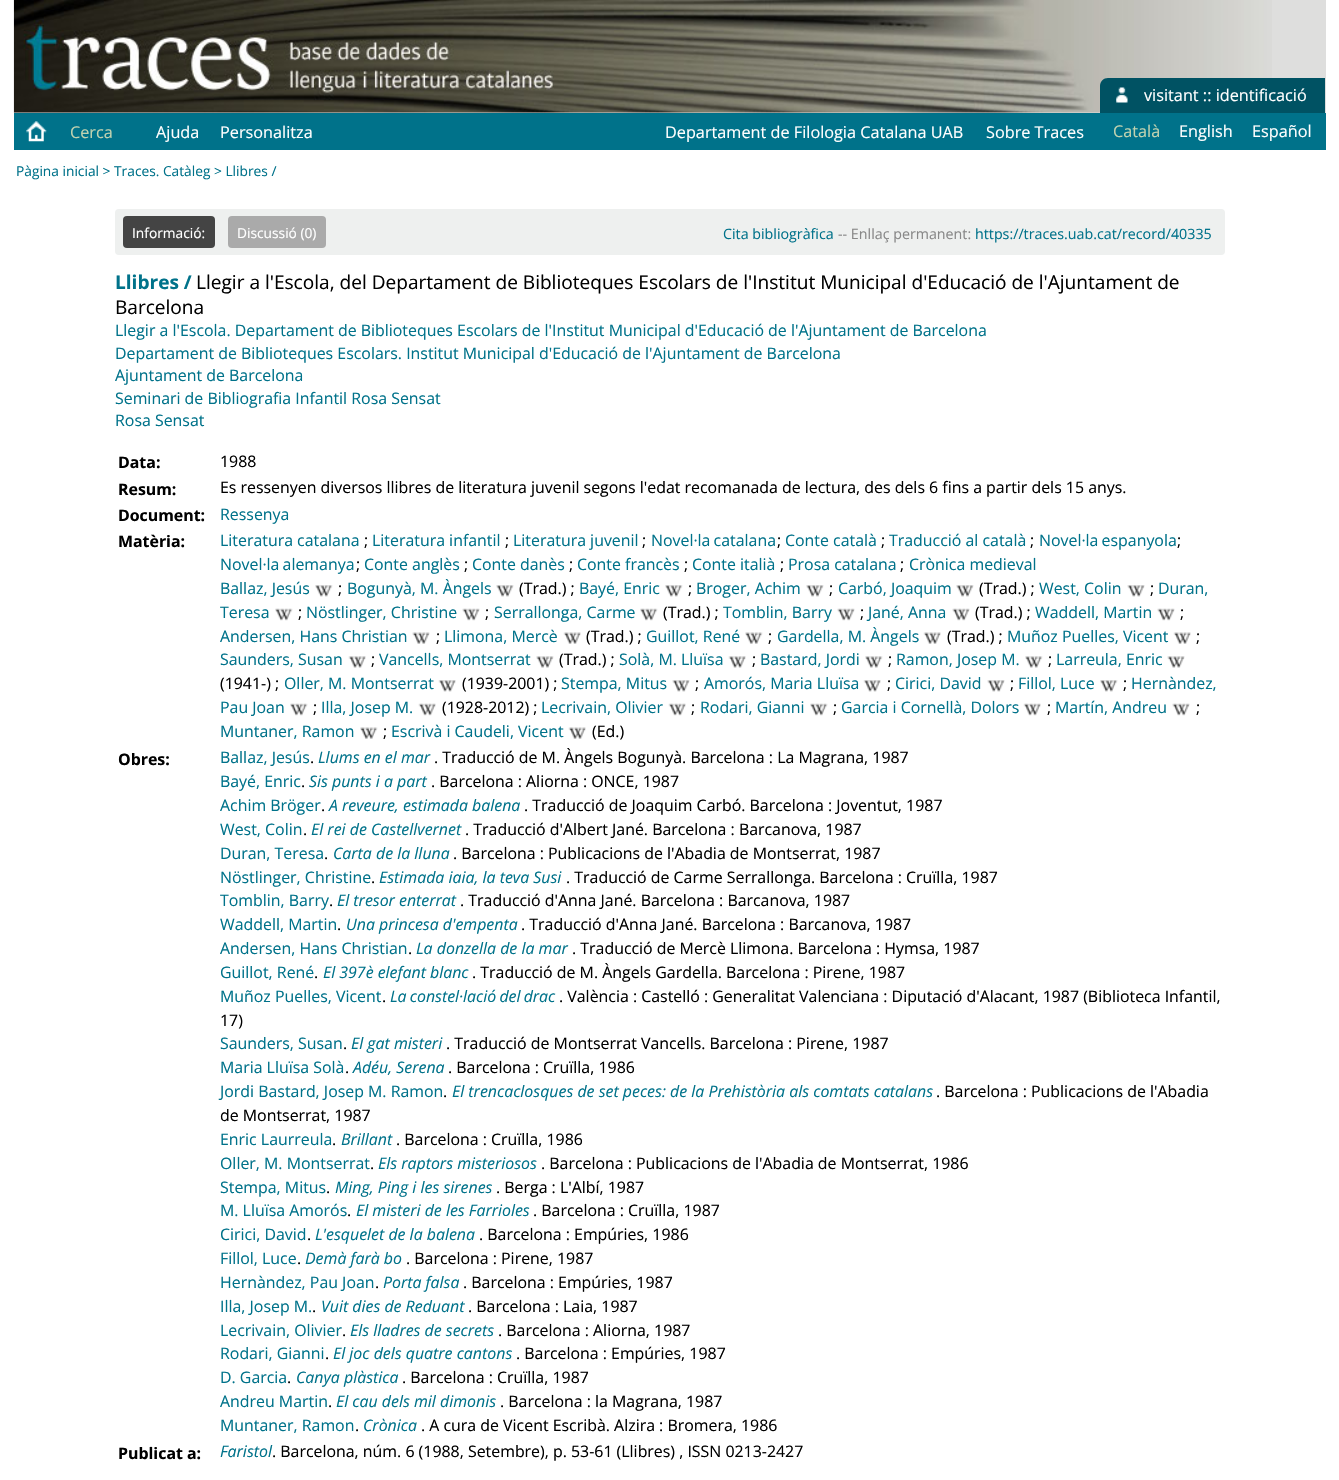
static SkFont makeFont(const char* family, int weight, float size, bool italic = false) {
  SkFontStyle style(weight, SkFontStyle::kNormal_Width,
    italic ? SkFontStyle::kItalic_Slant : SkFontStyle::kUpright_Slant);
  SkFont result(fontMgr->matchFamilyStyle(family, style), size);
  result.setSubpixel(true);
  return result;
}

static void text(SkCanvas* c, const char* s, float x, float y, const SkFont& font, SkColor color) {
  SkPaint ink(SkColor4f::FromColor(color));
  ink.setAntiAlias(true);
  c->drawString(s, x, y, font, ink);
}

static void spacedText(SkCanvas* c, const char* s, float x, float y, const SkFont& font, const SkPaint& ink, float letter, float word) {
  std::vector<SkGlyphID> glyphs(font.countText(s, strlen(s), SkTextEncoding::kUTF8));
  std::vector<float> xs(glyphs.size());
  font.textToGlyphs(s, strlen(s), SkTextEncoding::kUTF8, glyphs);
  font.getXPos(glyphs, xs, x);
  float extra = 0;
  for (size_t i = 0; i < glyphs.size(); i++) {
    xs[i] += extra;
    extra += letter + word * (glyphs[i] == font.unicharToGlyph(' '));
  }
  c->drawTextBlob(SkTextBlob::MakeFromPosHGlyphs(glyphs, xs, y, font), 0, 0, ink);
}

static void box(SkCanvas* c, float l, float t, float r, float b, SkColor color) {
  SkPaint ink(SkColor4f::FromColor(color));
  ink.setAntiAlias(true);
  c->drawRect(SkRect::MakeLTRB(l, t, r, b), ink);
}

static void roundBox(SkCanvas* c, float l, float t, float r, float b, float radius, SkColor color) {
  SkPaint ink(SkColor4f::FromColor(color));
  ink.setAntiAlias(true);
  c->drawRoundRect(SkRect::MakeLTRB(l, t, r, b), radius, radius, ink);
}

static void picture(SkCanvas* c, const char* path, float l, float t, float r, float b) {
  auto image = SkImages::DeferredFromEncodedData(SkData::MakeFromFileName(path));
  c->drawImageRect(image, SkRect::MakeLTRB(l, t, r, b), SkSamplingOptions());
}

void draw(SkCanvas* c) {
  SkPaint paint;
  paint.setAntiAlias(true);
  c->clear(0xffffffff);
  box(c, 14, 0, 1326, 113, 0xffdededd);
  picture(c, "img_01.png", 13, 0, 1272, 113);
  paint.setColor(0xff005263);
  c->drawPath(SkPathBuilder().moveTo(1108, 78).lineTo(1325, 78).lineTo(1325, 113).lineTo(1100, 113).lineTo(1100, 86).cubicTo(1100, 81.5f, 1103.5f, 78, 1108, 78).close().detach(), paint);
  picture(c, "img_02.png", 1116, 87, 1128, 103);
  SkFont face1 = makeFont("Open Sans", 400, 16.25f);
  text(c, "visitant :: identificació", 1144, 101, face1, 0xffffffff);
  box(c, 14, 113, 1326, 150, 0xff00728a);
  picture(c, "img_03.png", 26, 121, 47, 142);
  text(c, "Cerca", 70, 138, face1, 0xffc1d2b0);
  text(c, "Ajuda", 156, 138, face1, 0xffffffff);
  text(c, "Personalitza", 220, 138, face1, 0xffffffff);
  text(c, "Departament de Filologia Catalana UAB", 665, 138, face1, 0xffffffff);
  text(c, "Sobre Traces", 986, 138, face1, 0xffffffff);
  text(c, "Català", 1113, 137, face1, 0xffc1d2b0);
  text(c, "English", 1179, 137, face1, 0xffffffff);
  text(c, "Español", 1252, 137, face1, 0xffffffff);
  SkFont face2 = makeFont("Open Sans", 400, 13.75f);
  text(c, "Pàgina inicial > Traces. Catàleg > Llibres /", 16, 176, face2, 0xff00728a);
  roundBox(c, 115, 209, 1225, 255, 4, 0xffeef0ef);
  roundBox(c, 123, 216, 215, 248, 4, 0xff444444);
  text(c, "Informació:", 132, 238, face2, 0xffffffff);
  roundBox(c, 228, 216, 326, 248, 4, 0xffaaaaaa);
  text(c, "Discussió (0)", 237, 238, face2, 0xffffffff);
  SkFont face3 = makeFont("Open Sans", 400, 14.25f);
  text(c, "Cita bibliogràfica", 723, 239, face3, 0xff00728a);
  text(c, "-- Enllaç permanent:", 838, 239, face3, 0xff888888);
  text(c, "https://traces.uab.cat/record/40335", 975, 239, face3, 0xff00728a);
  SkFont face4 = makeFont("Open Sans", 700, 19.07f);
  text(c, "Llibres /", 115, 289, face4, 0xff00728a);
  SkFont face5 = makeFont("Open Sans", 400, 19.07f);
  text(c, "Llegir a l'Escola, del Departament de Biblioteques Escolars de l'Institut Municipal d'Educació de l'Ajuntament de", 196, 289, face5, 0xff000000);
  text(c, "Barcelona", 115, 314, face5, 0xff000000);
  SkFont face6 = makeFont("Open Sans", 400, 15.9f);
  text(c, "Llegir a l'Escola. Departament de Biblioteques Escolars de l'Institut Municipal d'Educació de l'Ajuntament de Barcelona", 115, 336, face6, 0xff00728a);
  text(c, "Departament de Biblioteques Escolars. Institut Municipal d'Educació de l'Ajuntament de Barcelona", 115, 359, face6, 0xff00728a);
  text(c, "Ajuntament de Barcelona", 115, 381, face6, 0xff00728a);
  text(c, "Seminari de Bibliografia Infantil Rosa Sensat", 115, 404, face6, 0xff00728a);
  text(c, "Rosa Sensat", 115, 426, face6, 0xff00728a);
  SkFont face7 = makeFont("Open Sans", 700, 15.9f);
  text(c, "Data:", 118, 468, face7, 0xff000000);
  text(c, "1988", 220, 467, face6, 0xff000000);
  text(c, "Resum:", 118, 495, face7, 0xff000000);
  text(c, "Es ressenyen diversos llibres de literatura juvenil segons l'edat recomanada de lectura, des dels 6 fins a partir dels 15 anys.", 220, 493, face6, 0xff000000);
  text(c, "Document:", 118, 521, face7, 0xff000000);
  text(c, "Ressenya", 220, 520, face6, 0xff00728a);
  text(c, "Matèria:", 118, 547, face7, 0xff000000);
  text(c, "Literatura catalana", 220, 546, face6, 0xff00728a);
  text(c, ";", 364, 546, face6, 0xff000000);
  text(c, "Literatura infantil", 372, 546, face6, 0xff00728a);
  text(c, ";", 505, 546, face6, 0xff000000);
  text(c, "Literatura juvenil", 513, 546, face6, 0xff00728a);
  text(c, ";", 642, 546, face6, 0xff000000);
  paint.setColor(0xff00728a);
  spacedText(c, "Novel·la catalana", 651, 546, face6, paint, 0, -1);
  text(c, ";", 777, 546, face6, 0xff000000);
  text(c, "Conte català", 785, 546, face6, 0xff00728a);
  text(c, ";", 881, 546, face6, 0xff000000);
  text(c, "Traducció al català", 889, 546, face6, 0xff00728a);
  text(c, ";", 1030, 546, face6, 0xff000000);
  spacedText(c, "Novel·la espanyola", 1039, 546, face6, paint, 0, -1);
  text(c, ";", 1177, 546, face6, 0xff000000);
  spacedText(c, "Novel·la alemanya", 220, 570, face6, paint, 0, -1);
  text(c, ";", 356, 570, face6, 0xff000000);
  text(c, "Conte anglès", 364, 570, face6, 0xff00728a);
  text(c, ";", 464, 570, face6, 0xff000000);
  text(c, "Conte danès", 472, 570, face6, 0xff00728a);
  text(c, ";", 569, 570, face6, 0xff000000);
  text(c, "Conte francès", 577, 570, face6, 0xff00728a);
  text(c, ";", 684, 570, face6, 0xff000000);
  text(c, "Conte italià", 692, 570, face6, 0xff00728a);
  text(c, ";", 780, 570, face6, 0xff000000);
  text(c, "Prosa catalana", 788, 570, face6, 0xff00728a);
  text(c, ";", 900, 570, face6, 0xff000000);
  text(c, "Crònica medieval", 909, 570, face6, 0xff00728a);
  text(c, "Ballaz, Jesús", 220, 594, face6, 0xff00728a);
  picture(c, "img_04.png", 315, 585, 333, 597);
  text(c, ";", 338, 594, face6, 0xff000000);
  text(c, "Bogunyà, M. Àngels", 347, 594, face6, 0xff00728a);
  picture(c, "img_05.png", 496, 585, 514, 597);
  text(c, "(Trad.) ;", 519, 594, face6, 0xff000000);
  text(c, "Bayé, Enric", 579, 594, face6, 0xff00728a);
  picture(c, "img_04.png", 665, 585, 683, 597);
  text(c, ";", 688, 594, face6, 0xff000000);
  text(c, "Broger, Achim", 696, 594, face6, 0xff00728a);
  picture(c, "img_06.png", 806, 585, 824, 597);
  text(c, ";", 829, 594, face6, 0xff000000);
  text(c, "Carbó, Joaquim", 838, 594, face6, 0xff00728a);
  picture(c, "img_06.png", 956, 585, 974, 597);
  text(c, "(Trad.) ;", 979, 594, face6, 0xff000000);
  text(c, "West, Colin", 1039, 594, face6, 0xff00728a);
  picture(c, "img_07.png", 1127, 585, 1145, 597);
  text(c, ";", 1150, 594, face6, 0xff000000);
  text(c, "Duran,", 1158, 594, face6, 0xff00728a);
  text(c, "Teresa", 220, 618, face6, 0xff00728a);
  picture(c, "img_08.png", 275, 608, 293, 621);
  text(c, ";", 298, 618, face6, 0xff000000);
  text(c, "Nöstlinger, Christine", 306, 618, face6, 0xff00728a);
  picture(c, "img_09.png", 462, 608, 480, 621);
  text(c, ";", 485, 618, face6, 0xff000000);
  text(c, "Serrallonga, Carme", 494, 618, face6, 0xff00728a);
  picture(c, "img_10.png", 640, 608, 658, 621);
  text(c, "(Trad.) ;", 663, 618, face6, 0xff000000);
  text(c, "Tomblin, Barry", 723, 618, face6, 0xff00728a);
  picture(c, "img_09.png", 837, 608, 855, 621);
  text(c, ";", 860, 618, face6, 0xff000000);
  text(c, "Jané, Anna", 868, 618, face6, 0xff00728a);
  picture(c, "img_09.png", 952, 608, 970, 621);
  text(c, "(Trad.) ;", 975, 618, face6, 0xff000000);
  text(c, "Waddell, Martin", 1035, 618, face6, 0xff00728a);
  picture(c, "img_09.png", 1157, 608, 1175, 621);
  text(c, ";", 1180, 618, face6, 0xff000000);
  text(c, "Andersen, Hans Christian", 220, 642, face6, 0xff00728a);
  picture(c, "img_11.png", 412, 632, 430, 644);
  text(c, ";", 436, 642, face6, 0xff000000);
  text(c, "Llimona, Mercè", 444, 642, face6, 0xff00728a);
  picture(c, "img_12.png", 563, 632, 581, 644);
  text(c, "(Trad.) ;", 586, 642, face6, 0xff000000);
  text(c, "Guillot, René", 646, 642, face6, 0xff00728a);
  picture(c, "img_13.png", 745, 632, 763, 644);
  text(c, ";", 768, 642, face6, 0xff000000);
  text(c, "Gardella, M. Àngels", 777, 642, face6, 0xff00728a);
  picture(c, "img_12.png", 923, 632, 941, 644);
  text(c, "(Trad.) ;", 947, 642, face6, 0xff000000);
  text(c, "Muñoz Puelles, Vicent", 1007, 642, face6, 0xff00728a);
  picture(c, "img_12.png", 1173, 632, 1191, 644);
  text(c, ";", 1196, 642, face6, 0xff000000);
  text(c, "Saunders, Susan", 220, 665, face6, 0xff00728a);
  picture(c, "img_14.png", 348, 656, 366, 668);
  text(c, ";", 371, 665, face6, 0xff000000);
  text(c, "Vancells, Montserrat", 379, 665, face6, 0xff00728a);
  picture(c, "img_15.png", 536, 656, 554, 668);
  text(c, "(Trad.) ;", 559, 665, face6, 0xff000000);
  text(c, "Solà, M. Lluïsa", 619, 665, face6, 0xff00728a);
  picture(c, "img_16.png", 728, 656, 746, 668);
  text(c, ";", 752, 665, face6, 0xff000000);
  text(c, "Bastard, Jordi", 760, 665, face6, 0xff00728a);
  picture(c, "img_17.png", 865, 656, 883, 668);
  text(c, ";", 888, 665, face6, 0xff000000);
  text(c, "Ramon, Josep M.", 896, 665, face6, 0xff00728a);
  picture(c, "img_18.png", 1025, 656, 1043, 668);
  text(c, ";", 1048, 665, face6, 0xff000000);
  text(c, "Larreula, Enric", 1056, 665, face6, 0xff00728a);
  picture(c, "img_19.png", 1167, 656, 1185, 668);
  text(c, "(1941-) ;", 220, 689, face6, 0xff000000);
  text(c, "Oller, M. Montserrat", 284, 689, face6, 0xff00728a);
  picture(c, "img_20.png", 438, 680, 456, 692);
  text(c, "(1939-2001) ;", 462, 689, face6, 0xff000000);
  text(c, "Stempa, Mitus", 561, 689, face6, 0xff00728a);
  picture(c, "img_21.png", 672, 680, 690, 692);
  text(c, ";", 695, 689, face6, 0xff000000);
  text(c, "Amorós, Maria Lluïsa", 704, 689, face6, 0xff00728a);
  picture(c, "img_20.png", 863, 680, 881, 692);
  text(c, ";", 887, 689, face6, 0xff000000);
  text(c, "Cirici, David", 895, 689, face6, 0xff00728a);
  picture(c, "img_21.png", 987, 680, 1005, 692);
  text(c, ";", 1010, 689, face6, 0xff000000);
  text(c, "Fillol, Luce", 1018, 689, face6, 0xff00728a);
  picture(c, "img_22.png", 1100, 680, 1118, 692);
  text(c, ";", 1123, 689, face6, 0xff000000);
  text(c, "Hernàndez,", 1131, 689, face6, 0xff00728a);
  text(c, "Pau Joan", 220, 713, face6, 0xff00728a);
  picture(c, "img_08.png", 290, 703, 308, 716);
  text(c, ";", 313, 713, face6, 0xff000000);
  text(c, "Illa, Josep M.", 321, 713, face6, 0xff00728a);
  picture(c, "img_23.png", 418, 703, 436, 716);
  text(c, "(1928-2012) ;", 442, 713, face6, 0xff000000);
  text(c, "Lecrivain, Olivier", 541, 713, face6, 0xff00728a);
  picture(c, "img_23.png", 668, 703, 686, 716);
  text(c, ";", 691, 713, face6, 0xff000000);
  text(c, "Rodari, Gianni", 700, 713, face6, 0xff00728a);
  picture(c, "img_08.png", 810, 703, 828, 716);
  text(c, ";", 833, 713, face6, 0xff000000);
  text(c, "Garcia i Cornellà, Dolors", 841, 713, face6, 0xff00728a);
  picture(c, "img_24.png", 1023, 703, 1041, 716);
  text(c, ";", 1047, 713, face6, 0xff000000);
  text(c, "Martín, Andreu", 1055, 713, face6, 0xff00728a);
  picture(c, "img_09.png", 1172, 703, 1190, 716);
  text(c, ";", 1196, 713, face6, 0xff000000);
  text(c, "Muntaner, Ramon", 220, 737, face6, 0xff00728a);
  picture(c, "img_13.png", 360, 727, 378, 739);
  text(c, ";", 383, 737, face6, 0xff000000);
  text(c, "Escrivà i Caudeli, Vicent", 391, 737, face6, 0xff00728a);
  picture(c, "img_12.png", 568, 727, 586, 739);
  text(c, "(Ed.)", 592, 737, face6, 0xff000000);
  text(c, "Obres:", 118, 765, face7, 0xff000000);
  text(c, "Ballaz, Jesús", 220, 763, face6, 0xff00728a);
  text(c, ".", 310, 763, face6, 0xff000000);
  SkFont face8 = makeFont("Open Sans", 400, 15.9f, true);
  text(c, "Llums en el mar", 318, 763, face8, 0xff00728a);
  text(c, ". Traducció de M. Àngels Bogunyà. Barcelona : La Magrana, 1987", 434, 763, face6, 0xff000000);
  text(c, "Bayé, Enric", 220, 787, face6, 0xff00728a);
  text(c, ".", 301, 787, face6, 0xff000000);
  text(c, "Sis punts i a part", 309, 787, face8, 0xff00728a);
  text(c, ". Barcelona : Aliorna : ONCE, 1987", 431, 787, face6, 0xff000000);
  text(c, "Achim Bröger", 220, 811, face6, 0xff00728a);
  text(c, ".", 321, 811, face6, 0xff000000);
  text(c, "A reveure, estimada balena", 329, 811, face8, 0xff00728a);
  text(c, ". Traducció de Joaquim Carbó. Barcelona : Joventut, 1987", 524, 811, face6, 0xff000000);
  text(c, "West, Colin", 220, 835, face6, 0xff00728a);
  text(c, ".", 303, 835, face6, 0xff000000);
  text(c, "El rei de Castellvernet", 311, 835, face8, 0xff00728a);
  text(c, ". Traducció d'Albert Jané. Barcelona : Barcanova, 1987", 465, 835, face6, 0xff000000);
  text(c, "Duran, Teresa", 220, 859, face6, 0xff00728a);
  text(c, ".", 324, 859, face6, 0xff000000);
  text(c, "Carta de la lluna", 333, 859, face8, 0xff00728a);
  text(c, ". Barcelona : Publicacions de l'Abadia de Montserrat, 1987", 453, 859, face6, 0xff000000);
  text(c, "Nöstlinger, Christine", 220, 883, face6, 0xff00728a);
  text(c, ".", 371, 883, face6, 0xff000000);
  text(c, "Estimada iaia, la teva Susi", 379, 883, face8, 0xff00728a);
  text(c, ". Traducció de Carme Serrallonga. Barcelona : Cruïlla, 1987", 566, 883, face6, 0xff000000);
  text(c, "Tomblin, Barry", 220, 906, face6, 0xff00728a);
  text(c, ".", 329, 906, face6, 0xff000000);
  text(c, "El tresor enterrat", 337, 906, face8, 0xff00728a);
  text(c, ". Traducció d'Anna Jané. Barcelona : Barcanova, 1987", 460, 906, face6, 0xff000000);
  text(c, "Waddell, Martin", 220, 930, face6, 0xff00728a);
  text(c, ".", 337, 930, face6, 0xff000000);
  text(c, "Una princesa d'empenta", 346, 930, face8, 0xff00728a);
  text(c, ". Traducció d'Anna Jané. Barcelona : Barcanova, 1987", 521, 930, face6, 0xff000000);
  text(c, "Andersen, Hans Christian", 220, 954, face6, 0xff00728a);
  text(c, ".", 408, 954, face6, 0xff000000);
  text(c, "La donzella de la mar", 416, 954, face8, 0xff00728a);
  text(c, ". Traducció de Mercè Llimona. Barcelona : Hymsa, 1987", 572, 954, face6, 0xff000000);
  text(c, "Guillot, René", 220, 978, face6, 0xff00728a);
  text(c, ".", 314, 978, face6, 0xff000000);
  text(c, "El 397è elefant blanc", 323, 978, face8, 0xff00728a);
  text(c, ". Traducció de M. Àngels Gardella. Barcelona : Pirene, 1987", 472, 978, face6, 0xff000000);
  text(c, "Muñoz Puelles, Vicent", 220, 1002, face6, 0xff00728a);
  text(c, ".", 382, 1002, face6, 0xff000000);
  spacedText(c, "La constel·lació del drac", 390, 1002, face8, paint, 0, -1);
  text(c, ". València : Castelló : Generalitat Valenciana : Diputació d'Alacant, 1987 (Biblioteca Infantil,", 559, 1002, face6, 0xff000000);
  text(c, "17)", 220, 1026, face6, 0xff000000);
  text(c, "Saunders, Susan", 220, 1049, face6, 0xff00728a);
  text(c, ".", 343, 1049, face6, 0xff000000);
  text(c, "El gat misteri", 351, 1049, face8, 0xff00728a);
  text(c, ". Traducció de Montserrat Vancells. Barcelona : Pirene, 1987", 446, 1049, face6, 0xff000000);
  text(c, "Maria Lluïsa Solà", 220, 1073, face6, 0xff00728a);
  text(c, ".", 345, 1073, face6, 0xff000000);
  text(c, "Adéu, Serena", 353, 1073, face8, 0xff00728a);
  text(c, ". Barcelona : Cruïlla, 1986", 448, 1073, face6, 0xff000000);
  text(c, "Jordi Bastard, Josep M. Ramon", 220, 1097, face6, 0xff00728a);
  text(c, ".", 443, 1097, face6, 0xff000000);
  text(c, "El trencaclosques de set peces: de la Prehistòria als comtats catalans", 452, 1097, face8, 0xff00728a);
  text(c, ". Barcelona : Publicacions de l'Abadia", 936, 1097, face6, 0xff000000);
  text(c, "de Montserrat, 1987", 220, 1121, face6, 0xff000000);
  text(c, "Enric Laurreula", 220, 1145, face6, 0xff00728a);
  text(c, ".", 332, 1145, face6, 0xff000000);
  text(c, "Brillant", 341, 1145, face8, 0xff00728a);
  text(c, ". Barcelona : Cruïlla, 1986", 396, 1145, face6, 0xff000000);
  text(c, "Oller, M. Montserrat", 220, 1169, face6, 0xff00728a);
  text(c, ".", 370, 1169, face6, 0xff000000);
  text(c, "Els raptors misteriosos", 378, 1169, face8, 0xff00728a);
  text(c, ". Barcelona : Publicacions de l'Abadia de Montserrat, 1986", 541, 1169, face6, 0xff000000);
  text(c, "Stempa, Mitus", 220, 1193, face6, 0xff00728a);
  text(c, ".", 326, 1193, face6, 0xff000000);
  text(c, "Ming, Ping i les sirenes", 335, 1193, face8, 0xff00728a);
  text(c, ". Berga : L'Albí, 1987", 496, 1193, face6, 0xff000000);
  text(c, "M. Lluïsa Amorós", 220, 1216, face6, 0xff00728a);
  text(c, ".", 347, 1216, face6, 0xff000000);
  text(c, "El misteri de les Farrioles", 356, 1216, face8, 0xff00728a);
  text(c, ". Barcelona : Cruïlla, 1987", 533, 1216, face6, 0xff000000);
  text(c, "Cirici, David", 220, 1240, face6, 0xff00728a);
  text(c, ".", 307, 1240, face6, 0xff000000);
  text(c, "L'esquelet de la balena", 315, 1240, face8, 0xff00728a);
  text(c, ". Barcelona : Empúries, 1986", 479, 1240, face6, 0xff000000);
  text(c, "Fillol, Luce", 220, 1264, face6, 0xff00728a);
  text(c, ".", 297, 1264, face6, 0xff000000);
  text(c, "Demà farà bo", 305, 1264, face8, 0xff00728a);
  text(c, ". Barcelona : Pirene, 1987", 406, 1264, face6, 0xff000000);
  text(c, "Hernàndez, Pau Joan", 220, 1288, face6, 0xff00728a);
  text(c, ".", 375, 1288, face6, 0xff000000);
  text(c, "Porta falsa", 383, 1288, face8, 0xff00728a);
  text(c, ". Barcelona : Empúries, 1987", 463, 1288, face6, 0xff000000);
  text(c, "Illa, Josep M.", 220, 1312, face6, 0xff00728a);
  text(c, ".", 312, 1312, face6, 0xff000000);
  text(c, "Vuit dies de Reduant", 321, 1312, face8, 0xff00728a);
  text(c, ". Barcelona : Laia, 1987", 468, 1312, face6, 0xff000000);
  text(c, "Lecrivain, Olivier", 220, 1336, face6, 0xff00728a);
  text(c, ".", 342, 1336, face6, 0xff000000);
  text(c, "Els lladres de secrets", 350, 1336, face8, 0xff00728a);
  text(c, ". Barcelona : Aliorna, 1987", 498, 1336, face6, 0xff000000);
  text(c, "Rodari, Gianni", 220, 1359, face6, 0xff00728a);
  text(c, ".", 325, 1359, face6, 0xff000000);
  text(c, "El joc dels quatre cantons", 333, 1359, face8, 0xff00728a);
  text(c, ". Barcelona : Empúries, 1987", 516, 1359, face6, 0xff000000);
  text(c, "D. Garcia", 220, 1383, face6, 0xff00728a);
  text(c, ".", 287, 1383, face6, 0xff000000);
  text(c, "Canya plàstica", 296, 1383, face8, 0xff00728a);
  text(c, ". Barcelona : Cruïlla, 1987", 402, 1383, face6, 0xff000000);
  text(c, "Andreu Martin", 220, 1407, face6, 0xff00728a);
  text(c, ".", 328, 1407, face6, 0xff000000);
  text(c, "El cau dels mil dimonis", 336, 1407, face8, 0xff00728a);
  text(c, ". Barcelona : la Magrana, 1987", 500, 1407, face6, 0xff000000);
  text(c, "Muntaner, Ramon", 220, 1431, face6, 0xff00728a);
  text(c, ".", 355, 1431, face6, 0xff000000);
  text(c, "Crònica", 363, 1431, face8, 0xff00728a);
  text(c, ". A cura de Vicent Escribà. Alzira : Bromera, 1986", 421, 1431, face6, 0xff000000);
  text(c, "Publicat a:", 118, 1459, face7, 0xff000000);
  text(c, "Faristol", 220, 1457, face8, 0xff00728a);
  text(c, ". Barcelona, núm. 6 (1988, Setembre), p. 53-61 (Llibres) , ISSN 0213-2427", 272, 1457, face6, 0xff000000);
}
